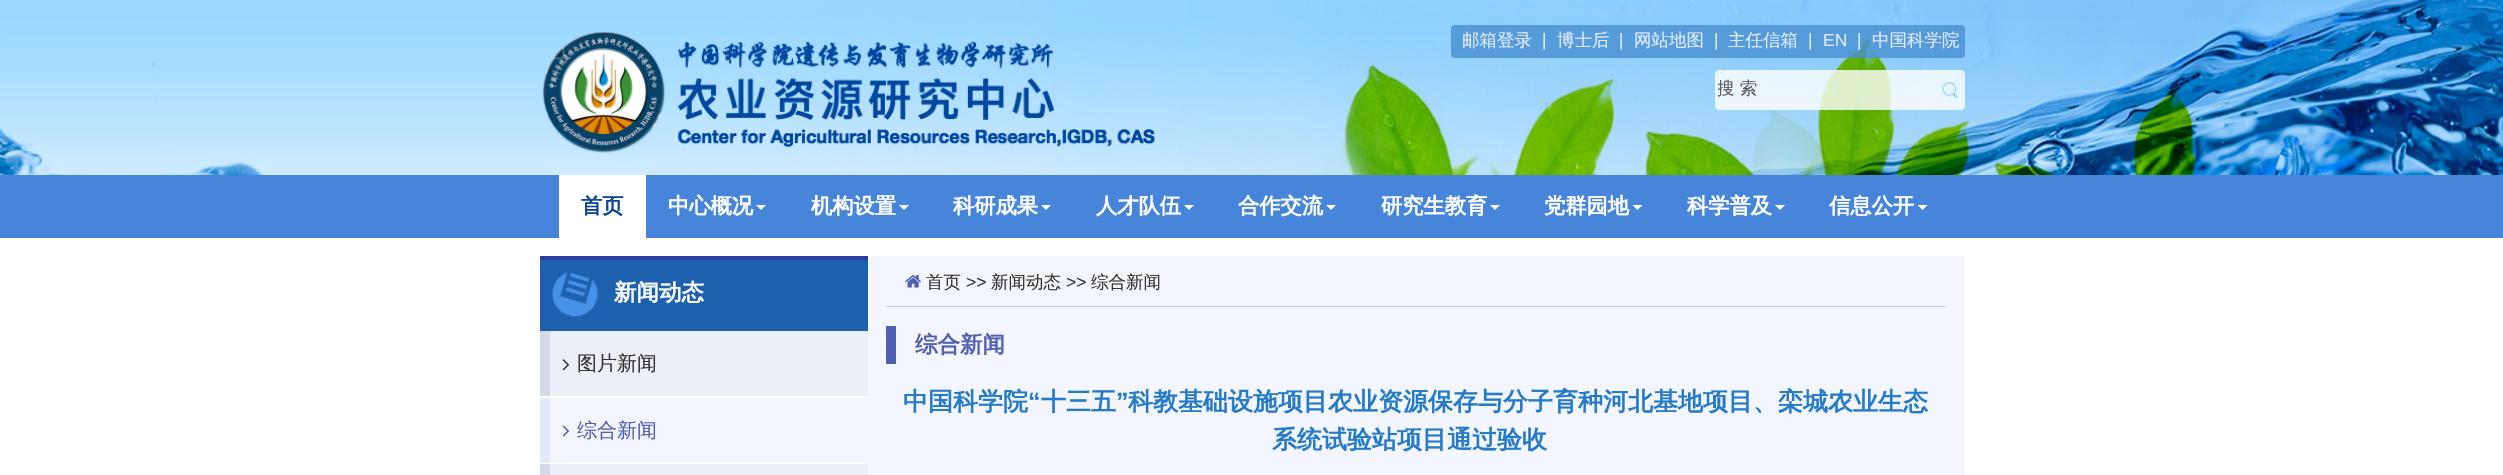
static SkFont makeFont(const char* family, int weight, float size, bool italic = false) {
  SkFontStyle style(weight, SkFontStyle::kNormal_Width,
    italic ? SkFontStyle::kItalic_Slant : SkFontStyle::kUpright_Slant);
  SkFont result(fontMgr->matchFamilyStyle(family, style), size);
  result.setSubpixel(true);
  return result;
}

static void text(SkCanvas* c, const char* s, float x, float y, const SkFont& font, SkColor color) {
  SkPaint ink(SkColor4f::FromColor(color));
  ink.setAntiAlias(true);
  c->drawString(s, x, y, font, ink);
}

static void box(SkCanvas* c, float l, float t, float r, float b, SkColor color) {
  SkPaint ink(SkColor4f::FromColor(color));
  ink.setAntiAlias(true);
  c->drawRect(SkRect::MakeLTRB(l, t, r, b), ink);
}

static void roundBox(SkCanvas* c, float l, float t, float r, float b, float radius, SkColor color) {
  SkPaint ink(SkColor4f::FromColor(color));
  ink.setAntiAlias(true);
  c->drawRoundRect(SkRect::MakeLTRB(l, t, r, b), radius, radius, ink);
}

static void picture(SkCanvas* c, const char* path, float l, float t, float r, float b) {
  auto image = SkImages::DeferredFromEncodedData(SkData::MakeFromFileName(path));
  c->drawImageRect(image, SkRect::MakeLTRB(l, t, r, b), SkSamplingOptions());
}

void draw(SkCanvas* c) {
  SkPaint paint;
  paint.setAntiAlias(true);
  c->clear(0xffffffff);
  picture(c, "img_01.png", 0, 0, 2503, 175);
  picture(c, "img_02.png", 543, 32, 1156, 154);
  roundBox(c, 1451, 25, 1965, 58, 4, 0xcc478ed1);
  SkFont face1 = makeFont("WenQuanYi Zen Hei", 500, 17.5f);
  text(c, "邮箱登录", 1462, 46, face1, 0xffddebf8);
  SkFont face2 = makeFont("Liberation Sans", 400, 17.5f);
  text(c, "|", 1542, 46, face2, 0xffddebf8);
  text(c, "博士后", 1557, 46, face1, 0xffddebf8);
  text(c, "|", 1619, 46, face2, 0xffddebf8);
  text(c, "网站地图", 1634, 46, face1, 0xffddebf8);
  text(c, "|", 1714, 46, face2, 0xffddebf8);
  text(c, "主任信箱", 1728, 46, face1, 0xffddebf8);
  text(c, "|", 1808, 46, face2, 0xffddebf8);
  text(c, "EN", 1823, 46, face2, 0xffddebf8);
  text(c, "|", 1857, 46, face2, 0xffddebf8);
  text(c, "中国科学院", 1872, 46, face1, 0xffddebf8);
  paint.setColor(0xccffffff);
  c->drawPath(SkPathBuilder().moveTo(1719, 70).lineTo(1935, 70).lineTo(1935, 110).lineTo(1719, 110).cubicTo(1717, 110, 1715, 108, 1715, 106).lineTo(1715, 74).cubicTo(1715, 72, 1717, 70, 1719, 70).close().detach(), paint);
  c->save();
  c->clipRect(SkRect::MakeLTRB(1718, 79, 1933, 101));
  text(c, "搜 索", 1717, 94, face1, 0xff585a5c);
  c->restore();
  c->drawPath(SkPathBuilder().moveTo(1935, 70).lineTo(1961, 70).cubicTo(1963, 70, 1965, 72, 1965, 74).lineTo(1965, 106).cubicTo(1965, 108, 1963, 110, 1961, 110).lineTo(1935, 110).close().detach(), paint);
  picture(c, "img_03.png", 1942, 82, 1958, 98);
  box(c, 0, 175, 2503, 238, 0xff4685d9);
  box(c, 559, 175, 646, 238, 0xffffffff);
  SkFont face3 = makeFont("WenQuanYi Zen Hei", 700, 21.25f);
  text(c, "首页", 581, 213, face3, 0xff0e4698);
  text(c, "中心概况", 668, 213, face3, 0xffffffff);
  paint.setColor(0xffffffff);
  c->drawPath(SkPathBuilder().moveTo(756, 205).lineTo(766, 205).lineTo(761, 210).close().detach(), paint);
  text(c, "机构设置", 811, 213, face3, 0xffffffff);
  c->drawPath(SkPathBuilder().moveTo(899, 205).lineTo(909, 205).lineTo(904, 210).close().detach(), paint);
  text(c, "科研成果", 953, 213, face3, 0xffffffff);
  c->drawPath(SkPathBuilder().moveTo(1041, 205).lineTo(1051, 205).lineTo(1046, 210).close().detach(), paint);
  text(c, "人才队伍", 1096, 213, face3, 0xffffffff);
  c->drawPath(SkPathBuilder().moveTo(1184, 205).lineTo(1194, 205).lineTo(1189, 210).close().detach(), paint);
  text(c, "合作交流", 1238, 213, face3, 0xffffffff);
  c->drawPath(SkPathBuilder().moveTo(1326, 205).lineTo(1336, 205).lineTo(1331, 210).close().detach(), paint);
  text(c, "研究生教育", 1381, 213, face3, 0xffffffff);
  c->drawPath(SkPathBuilder().moveTo(1490, 205).lineTo(1500, 205).lineTo(1495, 210).close().detach(), paint);
  text(c, "党群园地", 1544, 213, face3, 0xffffffff);
  c->drawPath(SkPathBuilder().moveTo(1632.5f, 205).lineTo(1642.5f, 205).lineTo(1637.5f, 210).close().detach(), paint);
  text(c, "科学普及", 1687, 213, face3, 0xffffffff);
  c->drawPath(SkPathBuilder().moveTo(1775, 205).lineTo(1785, 205).lineTo(1780, 210).close().detach(), paint);
  text(c, "信息公开", 1829, 213, face3, 0xffffffff);
  c->drawPath(SkPathBuilder().moveTo(1917.5f, 205).lineTo(1927.5f, 205).lineTo(1922.5f, 210).close().detach(), paint);
  box(c, 540, 260, 868, 331, 0xff1d61ae);
  box(c, 540, 256, 868, 260, 0xff2b3fa1);
  picture(c, "img_04.png", 552, 272, 598, 317);
  SkFont face4 = makeFont("WenQuanYi Zen Hei", 700, 22.5f);
  text(c, "新闻动态", 614, 300, face4, 0xffffffff);
  box(c, 550, 331, 868, 396, 0xffeceef8);
  box(c, 540, 331, 550, 396, 0xffd5d8e7);
  picture(c, "img_05.png", 562, 359, 570, 371);
  SkFont face5 = makeFont("WenQuanYi Zen Hei", 500, 20);
  text(c, "图片新闻", 577, 370, face5, 0xff333333);
  box(c, 550, 398, 868, 463, 0xfff4f6ff);
  box(c, 540, 398, 550, 463, 0xffe3e8fa);
  picture(c, "img_06.png", 562, 425, 570, 437);
  text(c, "综合新闻", 577, 437, face5, 0xff5060b0);
  box(c, 550, 464, 868, 475, 0xffeceef8);
  box(c, 540, 464, 550, 475, 0xffd5d8e7);
  box(c, 868, 256, 1965, 475, 0xfff4f6ff);
  box(c, 886, 306, 1946, 307, 0xffbec6e9);
  picture(c, "img_07.png", 905, 275, 921, 288);
  text(c, "首页", 926, 288, face1, 0xff333333);
  text(c, ">>", 966, 288, face2, 0xff333333);
  text(c, "新闻动态", 991, 288, face1, 0xff333333);
  text(c, ">>", 1066, 288, face2, 0xff333333);
  text(c, "综合新闻", 1091, 288, face1, 0xff333333);
  box(c, 886, 326, 896, 364, 0xff5060b0);
  text(c, "综合新闻", 915, 352, face4, 0xff5060b0);
  SkFont face6 = makeFont("WenQuanYi Zen Hei", 700, 25);
  text(c, "中国科学院", 903, 410, face6, 0xff267bc9);
  SkFont face7 = makeFont("Liberation Sans", 700, 25);
  text(c, "“", 1028, 410, face7, 0xff267bc9);
  text(c, "十三五", 1041, 410, face6, 0xff267bc9);
  text(c, "”", 1116, 410, face7, 0xff267bc9);
  text(c, "科教基础设施项目农业资源保存与分子育种河北基地项目、栾城农业生态", 1128, 410, face6, 0xff267bc9);
  text(c, "系统试验站项目通过验收", 1272, 448, face6, 0xff267bc9);
}
